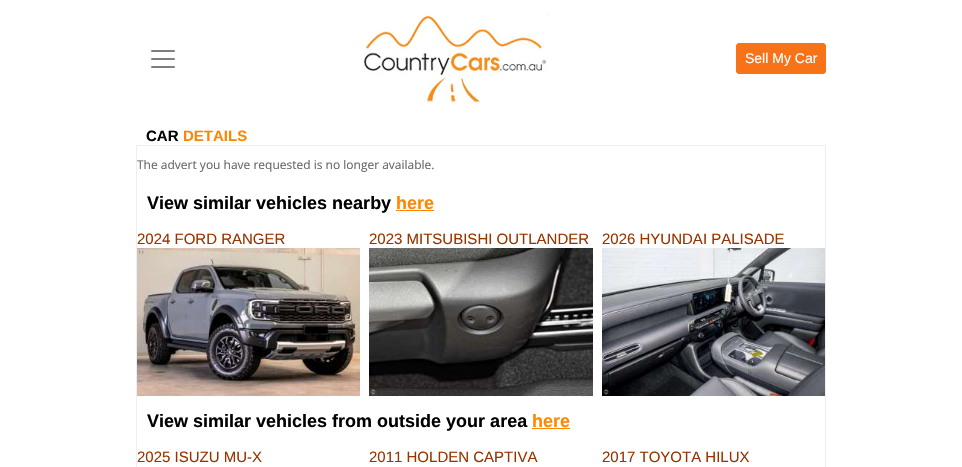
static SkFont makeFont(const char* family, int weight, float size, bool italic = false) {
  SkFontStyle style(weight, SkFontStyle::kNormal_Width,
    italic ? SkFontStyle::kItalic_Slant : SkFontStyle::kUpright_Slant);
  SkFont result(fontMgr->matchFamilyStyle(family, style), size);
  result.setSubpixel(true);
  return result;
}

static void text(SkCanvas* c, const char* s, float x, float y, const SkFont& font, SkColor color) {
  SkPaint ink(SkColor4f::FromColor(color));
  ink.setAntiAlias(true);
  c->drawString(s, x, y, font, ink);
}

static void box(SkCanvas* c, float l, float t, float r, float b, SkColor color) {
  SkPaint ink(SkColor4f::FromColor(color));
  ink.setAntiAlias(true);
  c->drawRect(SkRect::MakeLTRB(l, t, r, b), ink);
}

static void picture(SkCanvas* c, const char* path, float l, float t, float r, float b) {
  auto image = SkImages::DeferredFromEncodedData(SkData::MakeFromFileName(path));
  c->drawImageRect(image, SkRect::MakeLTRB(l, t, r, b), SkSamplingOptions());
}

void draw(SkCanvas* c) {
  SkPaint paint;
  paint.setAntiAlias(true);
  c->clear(0xffffffff);
  picture(c, "img_01.png", 151, 50, 175, 68);
  picture(c, "img_02.png", 364, 13, 549, 103);
  paint.setColor(0xfff87217);
  c->drawRoundRect(SkRect::MakeLTRB(736.5f, 43.5f, 825.5f, 73.5f), 2.5f, 2.5f, paint);
  paint.setStyle(SkPaint::kStroke_Style);
  paint.setStrokeWidth(1);
  paint.setColor(0xfff87417);
  c->drawRoundRect(SkRect::MakeLTRB(736.5f, 43.5f, 825.5f, 73.5f), 2.5f, 2.5f, paint);
  SkFont face1 = makeFont("Liberation Sans", 400, 14);
  text(c, "Sell My Car", 745, 63, face1, 0xffffffff);
  SkFont face2 = makeFont("Liberation Sans", 700, 15);
  text(c, "CAR", 146, 141, face2, 0xff000000);
  text(c, "DETAILS", 183, 141, face2, 0xffff8600);
  paint.setColor(0xffeeeeee);
  c->drawRect(SkRect::MakeLTRB(136.5f, 145.5f, 825.5f, 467.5f), paint);
  SkFont face3 = makeFont("Open Sans", 400, 12);
  text(c, "The advert you have requested is no longer available.", 137, 169, face3, 0xff666666);
  SkFont face4 = makeFont("Liberation Sans", 700, 18);
  text(c, "View similar vehicles nearby", 147, 209, face4, 0xff000000);
  text(c, "here", 396, 209, face4, 0xffff8600);
  box(c, 396, 210, 434, 211, 0xffff8500);
  SkFont face5 = makeFont("Liberation Sans", 400, 15);
  text(c, "2024 FORD RANGER", 137, 244, face5, 0xff993300);
  picture(c, "img_03.png", 137, 248, 360, 396);
  text(c, "2023 MITSUBISHI OUTLANDER", 369, 244, face5, 0xff993300);
  picture(c, "img_04.png", 369, 248, 593, 396);
  text(c, "2026 HYUNDAI PALISADE", 602, 244, face5, 0xff993300);
  picture(c, "img_05.png", 602, 248, 825, 396);
  text(c, "View similar vehicles from outside your area", 147, 427, face4, 0xff000000);
  text(c, "here", 532, 427, face4, 0xffff8600);
  box(c, 532, 428, 570, 429, 0xffff8500);
  text(c, "2025 ISUZU MU-X", 137, 462, face5, 0xff993300);
  text(c, "2011 HOLDEN CAPTIVA", 369, 462, face5, 0xff993300);
  text(c, "2017 TOYOTA HILUX", 602, 462, face5, 0xff993300);
}
